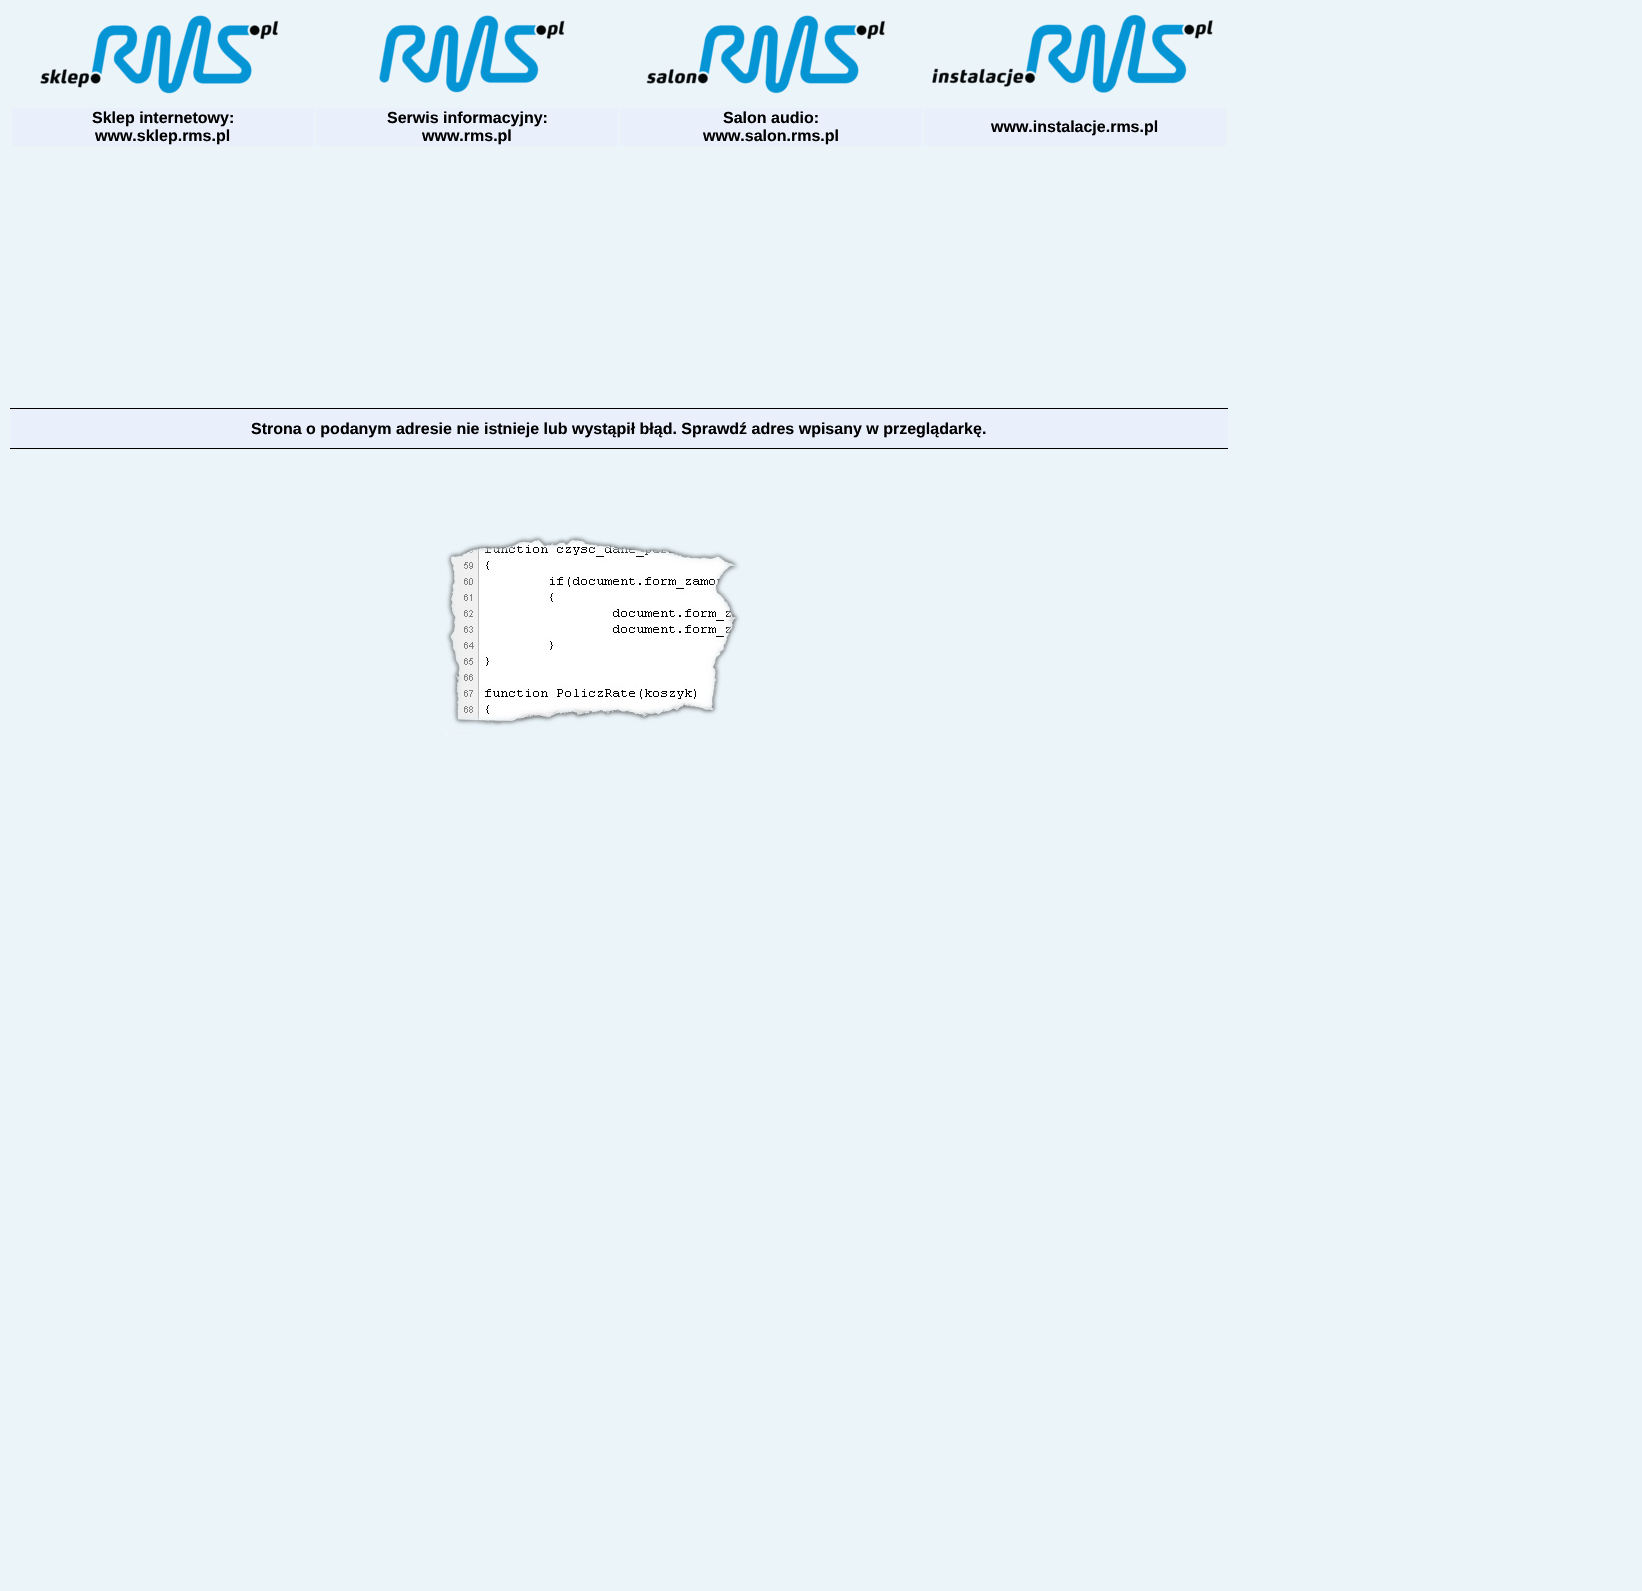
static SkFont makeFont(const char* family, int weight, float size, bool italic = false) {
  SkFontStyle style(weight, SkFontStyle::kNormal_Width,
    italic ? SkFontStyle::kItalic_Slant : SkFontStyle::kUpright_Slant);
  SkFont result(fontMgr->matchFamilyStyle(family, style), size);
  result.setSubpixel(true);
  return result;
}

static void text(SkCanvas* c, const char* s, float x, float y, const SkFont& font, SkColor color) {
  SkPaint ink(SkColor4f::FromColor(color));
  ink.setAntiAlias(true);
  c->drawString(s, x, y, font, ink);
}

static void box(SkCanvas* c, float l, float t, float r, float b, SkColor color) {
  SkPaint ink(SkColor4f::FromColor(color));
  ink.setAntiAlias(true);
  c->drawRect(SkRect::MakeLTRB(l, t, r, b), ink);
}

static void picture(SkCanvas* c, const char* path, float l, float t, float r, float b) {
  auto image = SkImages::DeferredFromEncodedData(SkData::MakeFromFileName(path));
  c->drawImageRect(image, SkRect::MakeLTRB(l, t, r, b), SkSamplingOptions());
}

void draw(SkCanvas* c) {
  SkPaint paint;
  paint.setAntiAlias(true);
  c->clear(0xffeaf4f9);
  picture(c, "img_01.png", 40, 15, 279, 94);
  picture(c, "img_02.png", 379, 15, 565, 93);
  picture(c, "img_03.png", 646, 15, 885, 94);
  picture(c, "img_04.png", 932, 14, 1213, 93);
  box(c, 12, 108, 314, 146, 0xffeaeffc);
  SkFont face1 = makeFont("Liberation Sans", 700, 16);
  text(c, "Sklep internetowy:", 92, 123, face1, 0xff000000);
  text(c, "www.sklep.rms.pl", 95, 141, face1, 0xff000000);
  box(c, 316, 108, 618, 146, 0xffeaeffc);
  text(c, "Serwis informacyjny:", 387, 123, face1, 0xff000000);
  text(c, "www.rms.pl", 422, 141, face1, 0xff000000);
  box(c, 620, 108, 922, 146, 0xffeaeffc);
  text(c, "Salon audio:", 723, 123, face1, 0xff000000);
  text(c, "www.salon.rms.pl", 703, 141, face1, 0xff000000);
  box(c, 924, 108, 1226, 146, 0xffeaeffc);
  text(c, "www.instalacje.rms.pl", 991, 132, face1, 0xff000000);
  box(c, 10, 409, 1228, 448, 0xffeaeffc);
  box(c, 10, 408, 1228, 409, 0xff000000);
  box(c, 10, 448, 1228, 449, 0xff000000);
  text(c, "Strona o podanym adresie nie istnieje lub wystąpił błąd. Sprawdź adres wpisany w przeglądarkę.", 251, 434, face1, 0xff000000);
  picture(c, "img_05.png", 445, 535, 740, 735);
}
